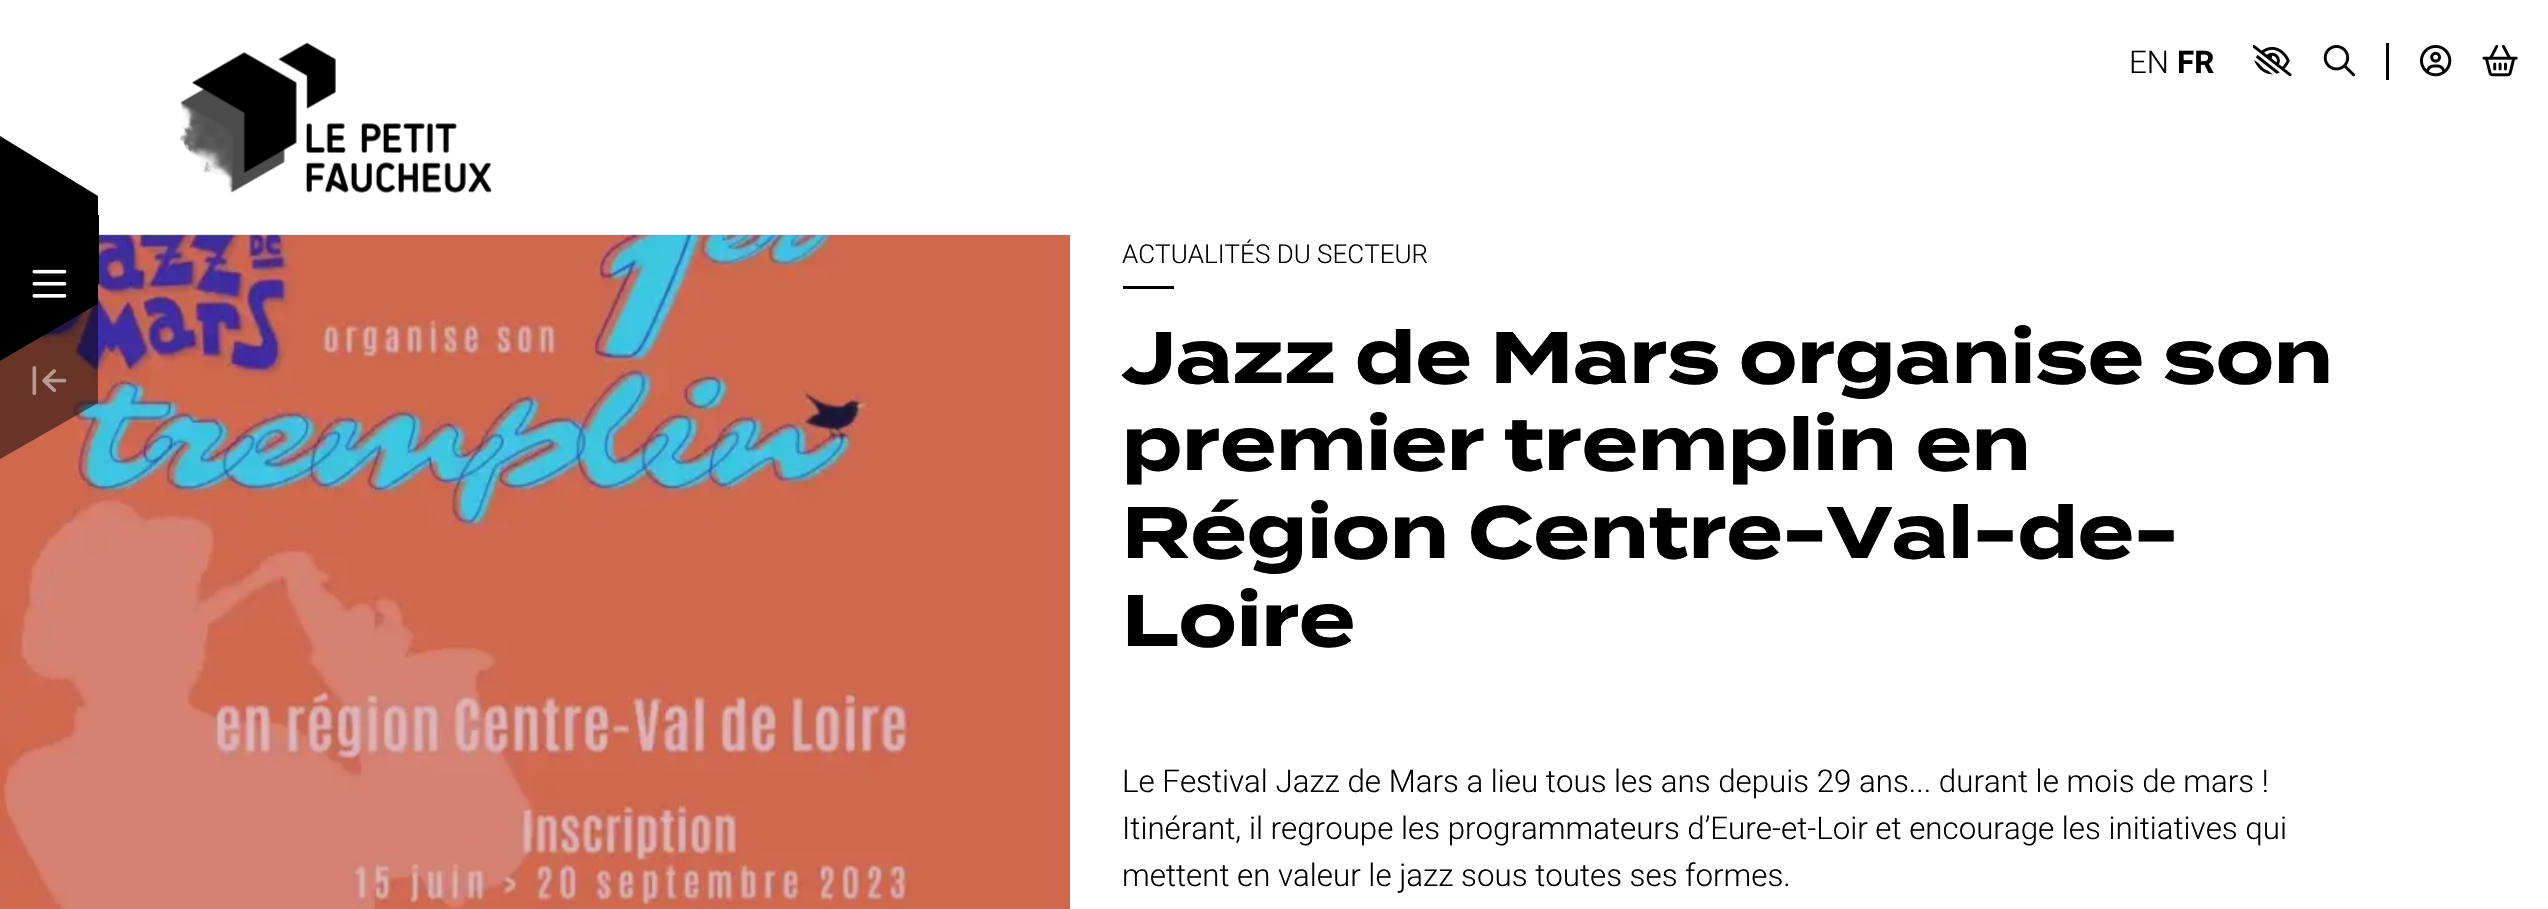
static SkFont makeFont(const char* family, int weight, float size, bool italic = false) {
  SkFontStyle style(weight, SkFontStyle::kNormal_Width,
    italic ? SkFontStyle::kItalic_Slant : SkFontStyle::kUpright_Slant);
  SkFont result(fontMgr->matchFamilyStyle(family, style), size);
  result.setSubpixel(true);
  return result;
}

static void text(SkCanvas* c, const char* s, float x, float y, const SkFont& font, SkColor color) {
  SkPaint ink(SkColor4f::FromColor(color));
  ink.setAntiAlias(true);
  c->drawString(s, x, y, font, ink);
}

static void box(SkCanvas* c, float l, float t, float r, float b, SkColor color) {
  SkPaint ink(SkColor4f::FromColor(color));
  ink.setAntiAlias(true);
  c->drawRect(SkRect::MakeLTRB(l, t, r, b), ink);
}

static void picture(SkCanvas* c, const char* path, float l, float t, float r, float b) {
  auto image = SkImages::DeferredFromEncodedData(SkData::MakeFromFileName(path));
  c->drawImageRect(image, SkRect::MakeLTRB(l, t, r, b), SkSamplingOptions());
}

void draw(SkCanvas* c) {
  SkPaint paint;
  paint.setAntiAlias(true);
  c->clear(0xffffffff);
  picture(c, "img_01.png", 179, 42, 492, 193);
  SkFont face1 = makeFont("Roboto", 300, 31.3f);
  text(c, "EN", 2129, 73, face1, 0xff000000);
  SkFont face2 = makeFont("Roboto", 700, 31.3f);
  text(c, "FR", 2177, 73, face2, 0xff000000);
  picture(c, "img_02.png", 2253, 45, 2292, 76);
  picture(c, "img_03.png", 2323, 45, 2355, 77);
  box(c, 2386, 43, 2389, 80, 0xff000000);
  picture(c, "img_04.png", 2420, 45, 2452, 77);
  picture(c, "img_05.png", 2482, 45, 2518, 77);
  box(c, 0, 235, 1070, 909, 0xff7269ee);
  picture(c, "img_08.png", 0, 234, 1070, 909);
  paint.setColor(0x80000000);
  c->drawPath(SkPathBuilder().moveTo(0, 361).lineTo(98, 304).lineTo(98, 403).lineTo(0, 459).close().detach(), paint);
  paint.setColor(0xff000000);
  c->drawPath(SkPathBuilder().moveTo(0, 263).lineTo(98, 206).lineTo(98, 304).lineTo(0, 361).close().detach(), paint);
  box(c, 0, 215, 99, 284, 0xff000000);
  c->drawPath(SkPathBuilder().moveTo(0, 136).lineTo(98, 196).lineTo(98, 294).lineTo(0, 234).close().detach(), paint);
  picture(c, "img_06.png", 32, 269, 67, 298);
  picture(c, "img_07.png", 32, 366, 67, 396);
  SkFont face3 = makeFont("Roboto", 300, 26);
  text(c, "ACTUALITÉS DU SECTEUR", 1122, 263, face3, 0xff000000);
  box(c, 1123, 286, 1174, 289, 0xff000000);
  SkFont face4 = makeFont("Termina", 700, 73);
  text(c, "Jazz de Mars organise son", 1122, 383, face4, 0xff000000);
  text(c, "premier tremplin en", 1122, 470, face4, 0xff000000);
  text(c, "Région Centre-Val-de-", 1122, 558, face4, 0xff000000);
  text(c, "Loire", 1122, 646, face4, 0xff000000);
  text(c, "Le Festival Jazz de Mars a lieu tous les ans depuis 29 ans... durant le mois de mars !", 1122, 792, face1, 0xff000000);
  text(c, "Itinérant, il regroupe les programmateurs d’Eure-et-Loir et encourage les initiatives qui", 1122, 839, face1, 0xff000000);
  text(c, "mettent en valeur le jazz sous toutes ses formes.", 1122, 886, face1, 0xff000000);
}
